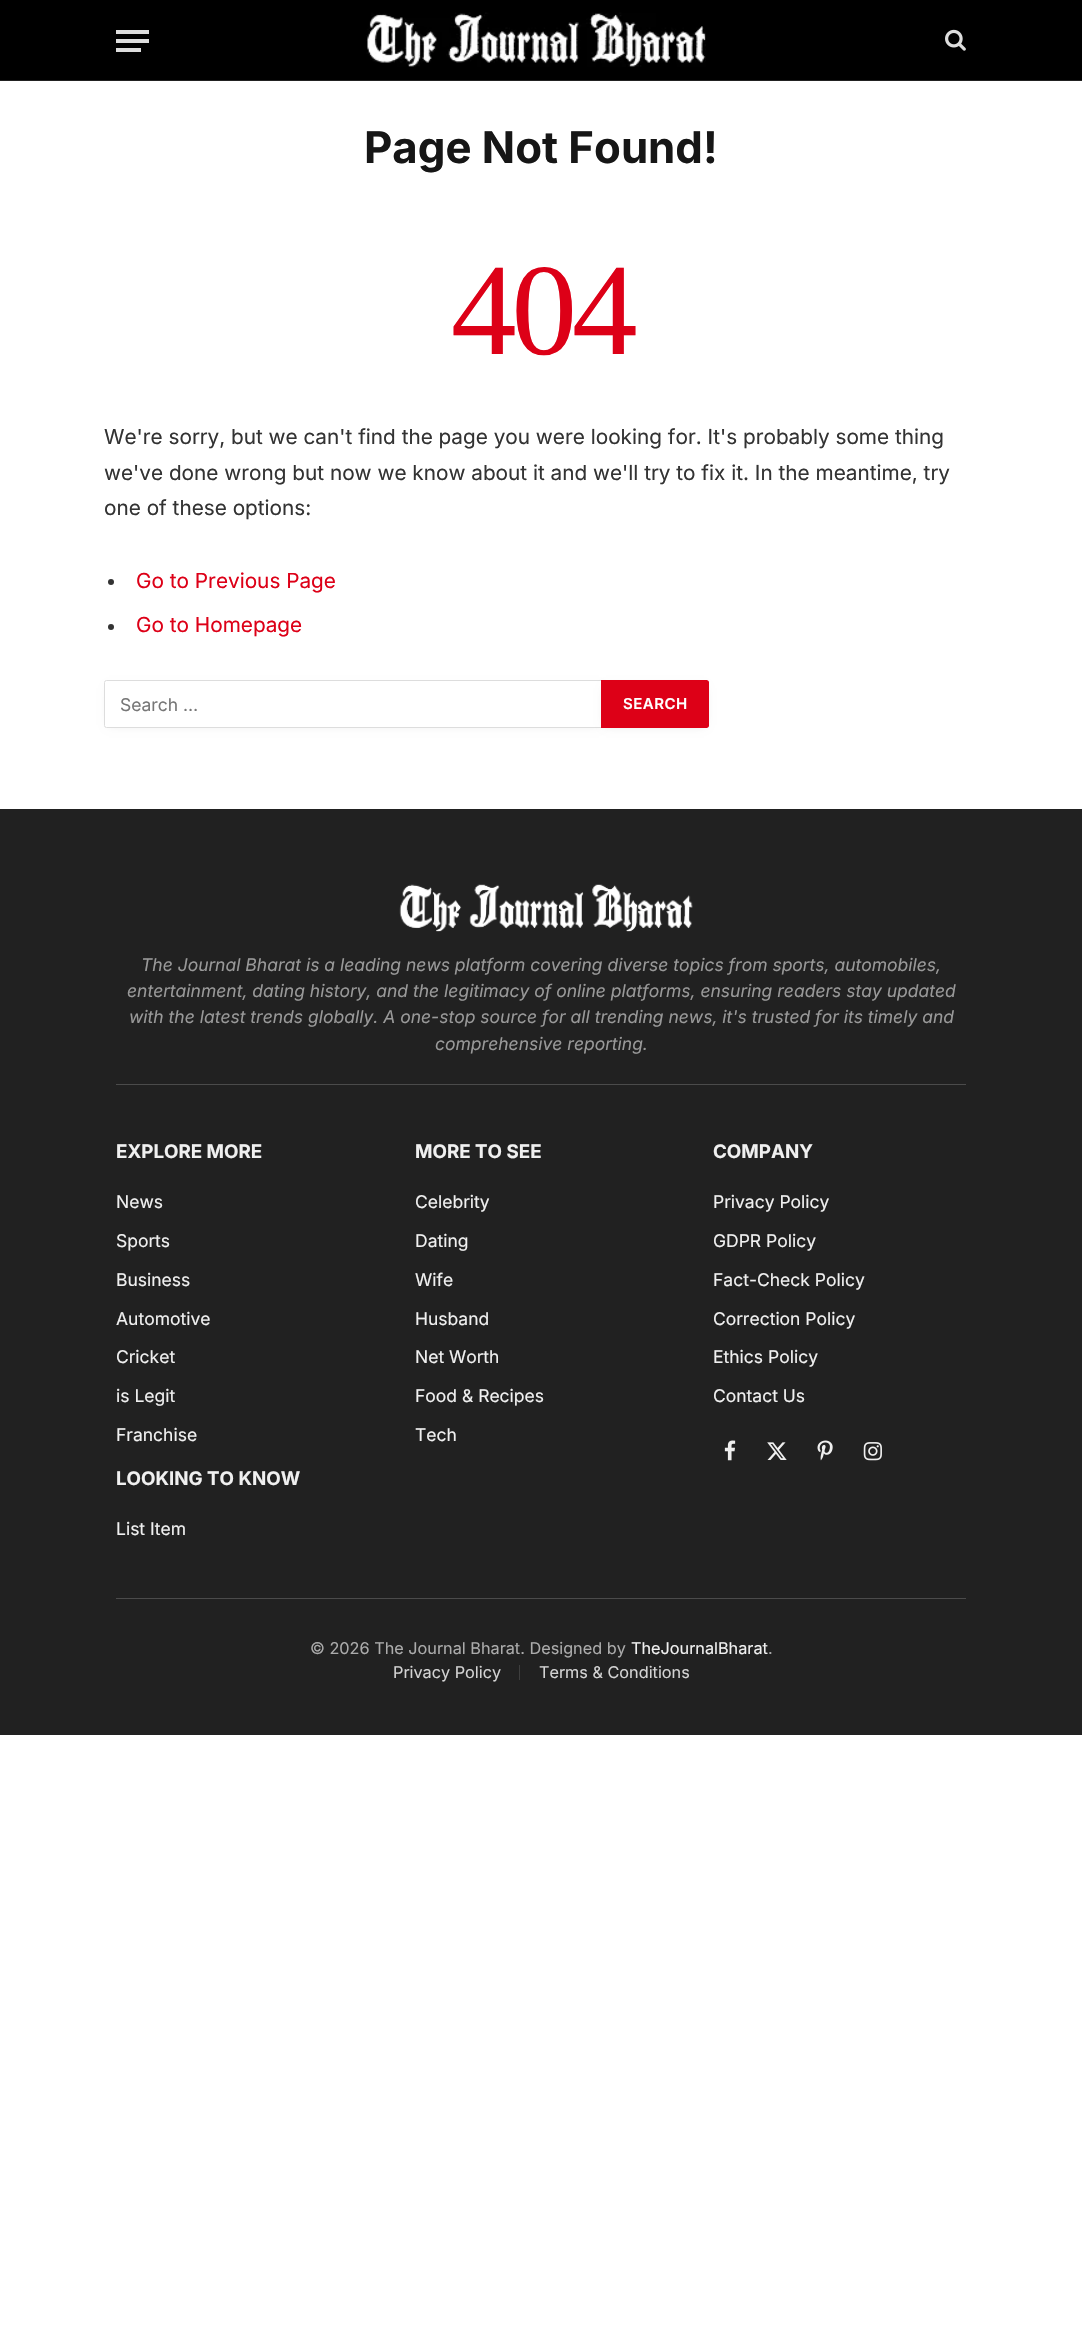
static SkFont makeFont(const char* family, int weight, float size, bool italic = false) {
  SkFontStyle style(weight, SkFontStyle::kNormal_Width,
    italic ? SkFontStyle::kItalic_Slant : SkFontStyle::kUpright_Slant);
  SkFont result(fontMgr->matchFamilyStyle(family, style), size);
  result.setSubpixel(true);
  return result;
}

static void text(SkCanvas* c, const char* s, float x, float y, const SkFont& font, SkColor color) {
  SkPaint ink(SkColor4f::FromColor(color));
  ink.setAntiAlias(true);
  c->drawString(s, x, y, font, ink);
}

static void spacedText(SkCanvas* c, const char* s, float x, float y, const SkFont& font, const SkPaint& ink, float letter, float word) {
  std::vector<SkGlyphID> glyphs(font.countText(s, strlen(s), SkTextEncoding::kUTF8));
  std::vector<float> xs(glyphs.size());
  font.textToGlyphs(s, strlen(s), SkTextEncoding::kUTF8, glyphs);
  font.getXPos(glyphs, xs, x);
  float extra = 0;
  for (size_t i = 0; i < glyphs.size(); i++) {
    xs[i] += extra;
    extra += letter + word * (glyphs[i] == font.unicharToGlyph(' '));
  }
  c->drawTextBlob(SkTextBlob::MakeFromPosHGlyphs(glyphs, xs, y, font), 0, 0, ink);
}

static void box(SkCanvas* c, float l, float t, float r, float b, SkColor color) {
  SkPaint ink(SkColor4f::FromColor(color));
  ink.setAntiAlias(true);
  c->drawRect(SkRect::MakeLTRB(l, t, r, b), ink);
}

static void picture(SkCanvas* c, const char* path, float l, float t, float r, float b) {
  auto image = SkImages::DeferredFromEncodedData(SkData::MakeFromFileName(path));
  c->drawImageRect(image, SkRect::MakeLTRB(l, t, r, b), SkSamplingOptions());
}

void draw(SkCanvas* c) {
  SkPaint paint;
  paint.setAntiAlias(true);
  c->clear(0xffffffff);
  box(c, 0, 0, 1082, 80, 0xff000000);
  box(c, 0, 80, 1082, 81, 0xff222222);
  box(c, 116, 48, 141, 52, 0xffdddddd);
  box(c, 116, 30, 149, 34, 0xffdddddd);
  box(c, 116, 39, 149, 43, 0xffdddddd);
  picture(c, "img_01.png", 366, 12, 706, 67);
  picture(c, "img_02.png", 945, 29, 966, 51);
  SkFont face1 = makeFont("Inter", 700, 43.75f);
  text(c, "Page Not Found!", 364, 163, face1, 0xff161616);
  SkFont face2 = makeFont("Liberation Serif", 400, 131);
  paint.setColor(0xffdd0017);
  spacedText(c, "404", 451, 354, face2, paint, -5, 0);
  SkFont face3 = makeFont("Inter", 400, 20.75f);
  text(c, "We're sorry, but we can't find the page you were looking for. It's probably some thing", 104, 444, face3, 0xff333333);
  text(c, "we've done wrong but now we know about it and we'll try to fix it. In the meantime, try", 104, 480, face3, 0xff333333);
  text(c, "one of these options:", 104, 515, face3, 0xff333333);
  paint.setColor(0xff333333);
  c->drawCircle(111, 582, 3, paint);
  text(c, "Go to Previous Page", 136, 588, face3, 0xffdd0017);
  c->drawCircle(111, 627, 3, paint);
  text(c, "Go to Homepage", 136, 632, face3, 0xffdd0017);
  paint.setColor(0x1a000000);
  paint.setMaskFilter(SkMaskFilter::MakeBlur(kNormal_SkBlurStyle, 4.5f));
  c->drawRect(SkRect::MakeLTRB(109, 688, 599, 725), paint);
  paint.setMaskFilter(nullptr);
  paint.setColor(0xffffffff);
  c->drawRoundRect(SkRect::MakeLTRB(104.5f, 680.5f, 603.5f, 727.5f), 2, 2, paint);
  paint.setStyle(SkPaint::kStroke_Style);
  paint.setStrokeWidth(1);
  paint.setColor(0xffdddddd);
  c->drawRoundRect(SkRect::MakeLTRB(104.5f, 680.5f, 603.5f, 727.5f), 2, 2, paint);
  SkFont face4 = makeFont("Inter", 400, 17.5f);
  text(c, "Search …", 120, 711, face4, 0xff777777);
  paint.setStyle(SkPaint::kFill_Style);
  paint.setColor(0x29000000);
  paint.setMaskFilter(SkMaskFilter::MakeBlur(kNormal_SkBlurStyle, 4.5f));
  c->drawRect(SkRect::MakeLTRB(606, 688, 704, 725), paint);
  paint.setMaskFilter(nullptr);
  paint.setColor(0xffdd0017);
  c->drawPath(SkPathBuilder().moveTo(601, 680).lineTo(706.5f, 680).cubicTo(708, 680, 709, 681, 709, 682.5f).lineTo(709, 725.5f).cubicTo(709, 727, 708, 728, 706.5f, 728).lineTo(601, 728).close().detach(), paint);
  SkFont face5 = makeFont("Inter", 600, 15);
  paint.setColor(0xffffffff);
  spacedText(c, "SEARCH", 623, 709, face5, paint, 0.5f, 0);
  box(c, 0, 809, 1082, 1735, 0xff212121);
  picture(c, "img_03.png", 399, 884, 693, 932);
  SkFont face6 = makeFont("Inter", 400, 17.5f, true);
  text(c, "The Journal Bharat is a leading news platform covering diverse topics from sports, automobiles,", 141, 971, face6, 0xff999999);
  text(c, "entertainment, dating history, and the legitimacy of online platforms, ensuring readers stay updated", 127, 997, face6, 0xff999999);
  text(c, "with the latest trends globally. A one-stop source for all trending news, it's trusted for its timely and", 129, 1023, face6, 0xff999999);
  text(c, "comprehensive reporting.", 435, 1050, face6, 0xff999999);
  box(c, 116, 1084, 966, 1085, 0xff4b4b4b);
  SkFont face7 = makeFont("Inter", 700, 18.75f);
  text(c, "EXPLORE MORE", 116, 1158, face7, 0xfff0f0f0);
  text(c, "News", 116, 1208, face4, 0xfff0f0f0);
  text(c, "Sports", 116, 1247, face4, 0xfff0f0f0);
  text(c, "Business", 116, 1286, face4, 0xfff0f0f0);
  text(c, "Automotive", 116, 1325, face4, 0xfff0f0f0);
  text(c, "Cricket", 116, 1363, face4, 0xfff0f0f0);
  text(c, "is Legit", 116, 1402, face4, 0xfff0f0f0);
  text(c, "Franchise", 116, 1441, face4, 0xfff0f0f0);
  text(c, "MORE TO SEE", 415, 1158, face7, 0xfff0f0f0);
  text(c, "Celebrity", 415, 1208, face4, 0xfff0f0f0);
  text(c, "Dating", 415, 1247, face4, 0xfff0f0f0);
  text(c, "Wife", 415, 1286, face4, 0xfff0f0f0);
  text(c, "Husband", 415, 1325, face4, 0xfff0f0f0);
  text(c, "Net Worth", 415, 1363, face4, 0xfff0f0f0);
  text(c, "Food & Recipes", 415, 1402, face4, 0xfff0f0f0);
  text(c, "Tech", 415, 1441, face4, 0xfff0f0f0);
  text(c, "COMPANY", 713, 1158, face7, 0xfff0f0f0);
  text(c, "Privacy Policy", 713, 1208, face4, 0xfff0f0f0);
  text(c, "GDPR Policy", 713, 1247, face4, 0xfff0f0f0);
  text(c, "Fact-Check Policy", 713, 1286, face4, 0xfff0f0f0);
  text(c, "Correction Policy", 713, 1325, face4, 0xfff0f0f0);
  text(c, "Ethics Policy", 713, 1363, face4, 0xfff0f0f0);
  text(c, "Contact Us", 713, 1402, face4, 0xfff0f0f0);
  picture(c, "img_04.png", 724, 1440, 736, 1461);
  picture(c, "img_05.png", 767, 1442, 787, 1460);
  picture(c, "img_06.png", 817, 1440, 833, 1461);
  picture(c, "img_07.png", 863, 1442, 882, 1461);
  text(c, "LOOKING TO KNOW", 116, 1485, face7, 0xfff0f0f0);
  text(c, "List Item", 116, 1535, face4, 0xfff0f0f0);
  box(c, 116, 1598, 966, 1599, 0xff4b4b4b);
  SkFont face8 = makeFont("Inter", 400, 16.25f);
  text(c, "© 2026 The Journal Bharat. Designed by", 310, 1654, face8, 0xffababab);
  text(c, "TheJournalBharat", 631, 1654, face8, 0xfff0f0f0);
  text(c, ".", 768, 1654, face8, 0xffababab);
  text(c, "Privacy Policy", 393, 1678, face8, 0xffd3d3d3);
  box(c, 519, 1665, 520, 1680, 0xff3e3e3e);
  text(c, "Terms & Conditions", 539, 1678, face8, 0xffd3d3d3);
}
